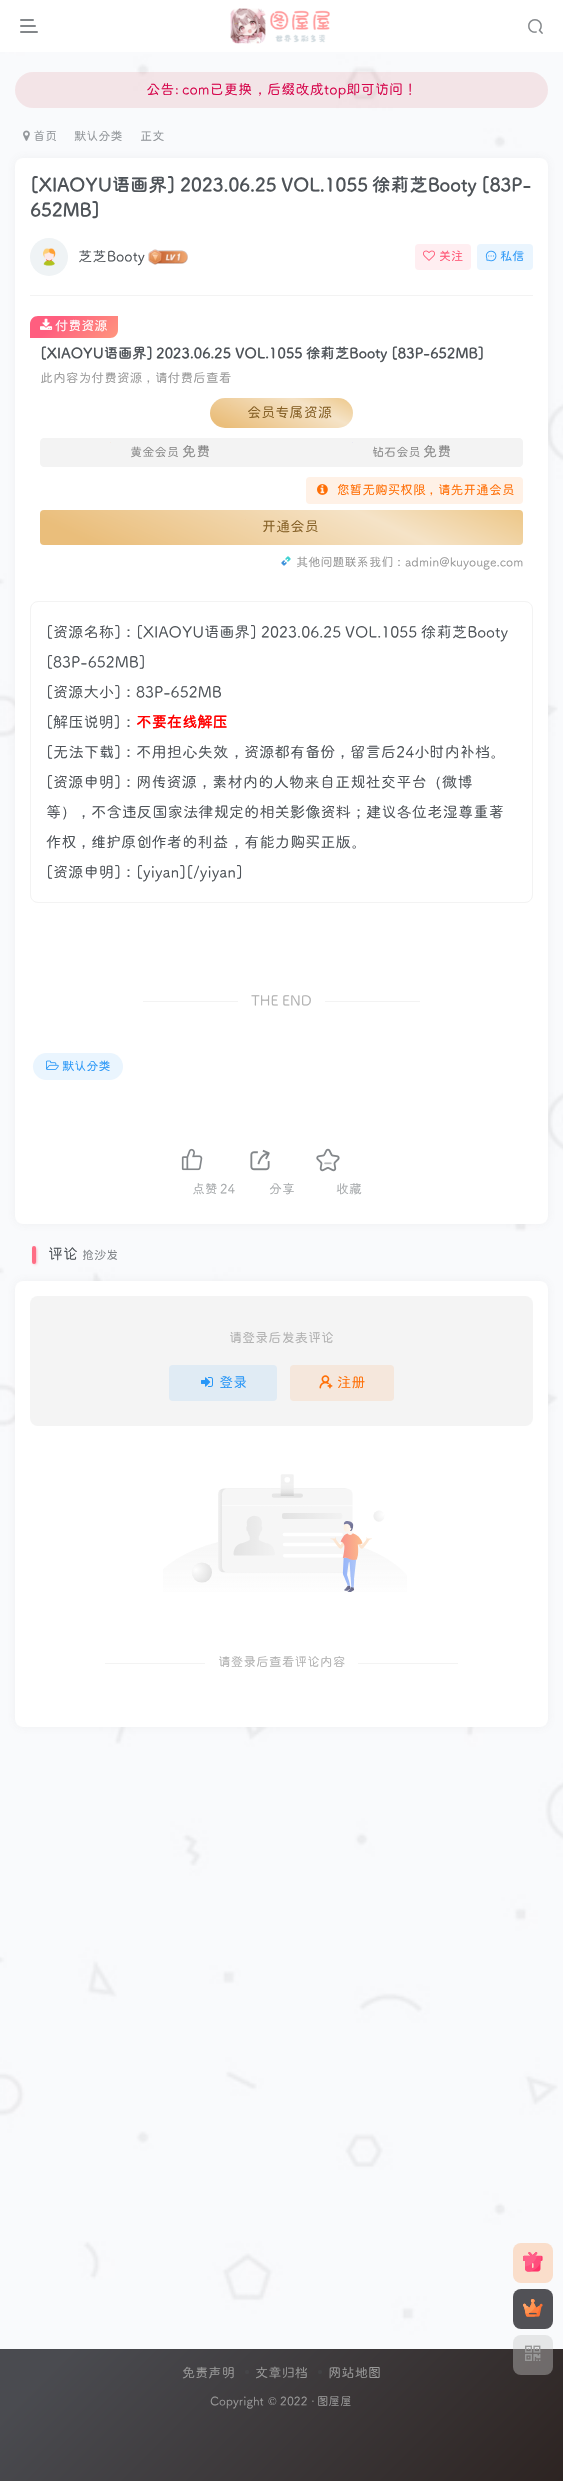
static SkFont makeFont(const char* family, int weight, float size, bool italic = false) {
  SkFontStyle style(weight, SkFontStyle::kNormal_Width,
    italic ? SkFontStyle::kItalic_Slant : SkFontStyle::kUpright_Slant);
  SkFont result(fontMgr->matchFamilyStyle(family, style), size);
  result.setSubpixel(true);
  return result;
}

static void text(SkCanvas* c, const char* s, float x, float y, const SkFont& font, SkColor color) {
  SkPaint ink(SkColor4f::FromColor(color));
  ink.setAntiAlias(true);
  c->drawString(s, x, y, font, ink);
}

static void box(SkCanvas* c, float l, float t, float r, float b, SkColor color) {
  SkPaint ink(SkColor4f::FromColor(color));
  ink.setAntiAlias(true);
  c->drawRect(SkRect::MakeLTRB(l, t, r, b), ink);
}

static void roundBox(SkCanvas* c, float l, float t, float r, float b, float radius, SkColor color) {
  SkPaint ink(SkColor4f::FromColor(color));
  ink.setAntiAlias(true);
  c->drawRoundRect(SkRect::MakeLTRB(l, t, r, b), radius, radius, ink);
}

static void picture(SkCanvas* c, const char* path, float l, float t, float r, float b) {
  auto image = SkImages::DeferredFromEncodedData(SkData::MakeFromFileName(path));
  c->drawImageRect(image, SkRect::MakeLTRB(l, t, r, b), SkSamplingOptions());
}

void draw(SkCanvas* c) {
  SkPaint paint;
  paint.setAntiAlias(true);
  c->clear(0xffffffff);
  picture(c, "img_01.png", 0, 52, 563, 2349);
  roundBox(c, 20, 19, 34, 21, 1, 0xff83878a);
  roundBox(c, 20, 25, 36, 27, 1, 0xff83878a);
  roundBox(c, 20, 31, 38, 33, 1, 0xff83878a);
  picture(c, "img_02.png", 230, 8, 330, 44);
  picture(c, "img_03.png", 528, 19, 543, 34);
  roundBox(c, 15, 72, 548, 108, 18, 0x1ac2292e);
  SkFont face1 = makeFont("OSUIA", 400, 14);
  text(c, "公告:", 146, 94, face1, 0xffd6064c);
  text(c, "com已更换", 182, 94, face1, 0xffd6064c);
  SkFont face2 = makeFont("WenQuanYi Zen Hei", 500, 14);
  text(c, "，", 253, 94, face2, 0xffd6064c);
  text(c, "后缀改成top即可访问！", 267, 94, face1, 0xffd6064c);
  picture(c, "img_04.png", 23, 130, 30, 141);
  SkFont face3 = makeFont("OSUIA", 400, 12);
  text(c, "首页", 33, 140, face3, 0xff92969a);
  text(c, "默认分类", 74, 140, face3, 0xff92969a);
  text(c, "正文", 140, 140, face3, 0xff92969a);
  paint.setColor(0x14747474);
  paint.setMaskFilter(SkMaskFilter::MakeBlur(kNormal_SkBlurStyle, 5));
  c->drawRoundRect(SkRect::MakeLTRB(15, 158, 548, 1224), 8, 8, paint);
  paint.setMaskFilter(nullptr);
  roundBox(c, 15, 158, 548, 1224, 8, 0xffffffff);
  SkFont face4 = makeFont("OSUIA", 700, 18);
  text(c, "[XIAOYU语画界]", 30, 191, face4, 0xff4e5358);
  text(c, "2023.06.25", 180, 191, face4, 0xff4e5358);
  text(c, "VOL.1055", 281, 191, face4, 0xff4e5358);
  text(c, "徐莉芝Booty", 372, 191, face4, 0xff4e5358);
  text(c, "[83P-", 481, 191, face4, 0xff4e5358);
  text(c, "652MB]", 30, 216, face4, 0xff4e5358);
  picture(c, "img_05.png", 30, 238, 68, 276);
  text(c, "芝芝Booty", 78, 261, face1, 0xff4e5358);
  picture(c, "img_06.png", 148, 249, 188, 265);
  roundBox(c, 415, 244, 471, 270, 4, 0xffffeef1);
  picture(c, "img_07.png", 423, 250, 435, 261);
  text(c, "关注", 439, 260, face3, 0xffff5473);
  roundBox(c, 477, 244, 533, 270, 4, 0xffeaf5fe);
  picture(c, "img_08.png", 485, 250, 497, 262);
  text(c, "私信", 500, 260, face3, 0xff2997f7);
  box(c, 30, 295, 533, 296, 0xfff3f3f3);
  c->save();
  c->clipPath(SkPathBuilder().moveTo(38, 316).lineTo(525, 316).cubicTo(529.5f, 316, 533, 319.5f, 533, 324).lineTo(533, 573).cubicTo(533, 577.5f, 529.5f, 581, 525, 581).lineTo(38, 581).cubicTo(33.5f, 581, 30, 577.5f, 30, 573).lineTo(30, 324).cubicTo(30, 319.5f, 33.5f, 316, 38, 316).close().detach(), true);
  {
    const SkColor colors[] = {0xffff5e7f, 0xffff967e};
    const float stops[] = {0.3f, 1};
    const SkPoint ends[] = {{46, 298}, {102, 354}};
    paint.setShader(SkGradientShader::MakeLinear(ends, colors, stops, 2, SkTileMode::kClamp));
    paint.setAlpha(255);
  }
  c->drawPath(SkPathBuilder().moveTo(38, 314).lineTo(118, 314).lineTo(118, 330).cubicTo(118, 334.5f, 114.5f, 338, 110, 338).lineTo(30, 338).lineTo(30, 322).cubicTo(30, 317.5f, 33.5f, 314, 38, 314).close().detach(), paint);
  c->restore();
  picture(c, "img_09.png", 40, 318, 53, 330);
  SkFont face5 = makeFont("OSUIA", 400, 13);
  text(c, "付费资源", 55, 330, face5, 0xffffffff);
  SkFont face6 = makeFont("OSUIA", 700, 14);
  text(c, "[XIAOYU语画界]", 40, 358, face6, 0xff4e5358);
  text(c, "2023.06.25", 156, 358, face6, 0xff4e5358);
  text(c, "VOL.1055", 235, 358, face6, 0xff4e5358);
  text(c, "徐莉芝Booty", 306, 358, face6, 0xff4e5358);
  text(c, "[83P-652MB]", 391, 358, face6, 0xff4e5358);
  SkFont face7 = makeFont("OSUIA", 400, 12.6f);
  text(c, "此内容为付费资源", 40, 382, face7, 0xff999999);
  SkFont face8 = makeFont("WenQuanYi Zen Hei", 500, 12.6f);
  text(c, "，", 142, 382, face8, 0xff999999);
  text(c, "请付费后查看", 155, 382, face7, 0xff999999);
  {
    const SkColor colors[] = {0xffeabe7b, 0xfff5e3c7, 0xffedc788};
    const float stops[] = {0.1f, 0.7f, 1};
    const SkPoint ends[] = {{263, 453}, {300, 373}};
    paint.setShader(SkGradientShader::MakeLinear(ends, colors, stops, 3, SkTileMode::kClamp));
    paint.setAlpha(255);
  }
  c->drawRoundRect(SkRect::MakeLTRB(210, 398, 353, 428), 15, 15, paint);
  box(c, 230, 405, 231, 406, 0xffefc995);
  text(c, "会员专属资源", 247, 417, face1, 0xff866127);
  paint.setShader(nullptr);
  paint.setColor(0xfff3f3f3);
  c->drawPath(SkPathBuilder().moveTo(44, 438).lineTo(282, 438).lineTo(282, 467).lineTo(44, 467).cubicTo(42, 467, 40, 465, 40, 463).lineTo(40, 442).cubicTo(40, 440, 42, 438, 44, 438).close().detach(), paint);
  box(c, 110, 442, 111, 443, 0xfff4ebe6);
  text(c, "黄金会员", 130, 456, face3, 0xff888888);
  text(c, "免费", 182, 456, face1, 0xff888888);
  c->drawPath(SkPathBuilder().moveTo(282, 438).lineTo(519, 438).cubicTo(521, 438, 523, 440, 523, 442).lineTo(523, 463).cubicTo(523, 465, 521, 467, 519, 467).lineTo(282, 467).close().detach(), paint);
  box(c, 352, 442, 353, 443, 0xffeae9f2);
  text(c, "钻石会员", 372, 456, face3, 0xff888888);
  text(c, "免费", 423, 456, face1, 0xff888888);
  roundBox(c, 306, 477, 523, 504, 4, 0xfffff1e6);
  picture(c, "img_10.png", 317, 484, 328, 495);
  text(c, "您暂无购买权限", 337, 494, face7, 0xffff6f06);
  text(c, "，", 425, 494, face8, 0xffff6f06);
  text(c, "请先开通会员", 438, 494, face7, 0xffff6f06);
  {
    const SkColor colors[] = {0xffeabe7b, 0xfff5e3c7, 0xffedc788};
    const float stops[] = {0.1f, 0.7f, 1};
    const SkPoint ends[] = {{232, 634}, {331, 421}};
    paint.setShader(SkGradientShader::MakeLinear(ends, colors, stops, 3, SkTileMode::kClamp));
    paint.setAlpha(255);
  }
  c->drawRoundRect(SkRect::MakeLTRB(40, 510, 523, 545), 4, 4, paint);
  box(c, 245, 519, 246, 520, 0xfff2d1a5);
  text(c, "开通会员", 262, 531, face1, 0xff866127);
  picture(c, "img_11.png", 281, 556, 291, 566);
  text(c, "其他问题联系我们", 296, 566, face3, 0xff999999);
  SkFont face9 = makeFont("WenQuanYi Zen Hei", 500, 12);
  text(c, "：", 393, 566, face9, 0xff999999);
  text(c, "admin@kuyouge.com", 405, 566, face3, 0xff999999);
  paint.setStyle(SkPaint::kStroke_Style);
  paint.setStrokeWidth(1);
  paint.setShader(nullptr);
  paint.setColor(0xfff3f3f3);
  c->drawRoundRect(SkRect::MakeLTRB(30.5f, 601.5f, 532.5f, 902.5f), 7.5f, 7.5f, paint);
  SkFont face10 = makeFont("OSUIA", 400, 15);
  text(c, "[资源名称]", 46, 637, face10, 0xff4e5358);
  SkFont face11 = makeFont("WenQuanYi Zen Hei", 500, 15);
  text(c, "：", 121, 637, face11, 0xff4e5358);
  text(c, "[XIAOYU语画界]", 136, 637, face10, 0xff4e5358);
  text(c, "2023.06.25", 261, 637, face10, 0xff4e5358);
  text(c, "VOL.1055", 345, 637, face10, 0xff4e5358);
  text(c, "徐莉芝Booty", 421, 637, face10, 0xff4e5358);
  text(c, "[83P-652MB]", 46, 667, face10, 0xff4e5358);
  text(c, "[资源大小]", 46, 697, face10, 0xff4e5358);
  text(c, "：", 121, 697, face11, 0xff4e5358);
  text(c, "83P-652MB", 136, 697, face10, 0xff4e5358);
  text(c, "[解压说明]", 46, 727, face10, 0xff4e5358);
  text(c, "：", 121, 727, face11, 0xff4e5358);
  SkFont face12 = makeFont("OSUIA", 700, 15);
  text(c, "不要在线解压", 136, 727, face12, 0xffff0000);
  text(c, "[无法下载]", 46, 757, face10, 0xff4e5358);
  text(c, "：", 121, 757, face11, 0xff4e5358);
  text(c, "不用担心失效", 136, 757, face10, 0xff4e5358);
  text(c, "，", 229, 757, face11, 0xff4e5358);
  text(c, "资源都有备份", 244, 757, face10, 0xff4e5358);
  text(c, "，", 335, 757, face11, 0xff4e5358);
  text(c, "留言后24小时内补档", 350, 757, face10, 0xff4e5358);
  text(c, "。", 490, 757, face11, 0xff4e5358);
  text(c, "[资源申明]", 46, 787, face10, 0xff4e5358);
  text(c, "：", 121, 787, face11, 0xff4e5358);
  text(c, "网传资源", 136, 787, face10, 0xff4e5358);
  text(c, "，", 197, 787, face11, 0xff4e5358);
  text(c, "素材内的人物来自正规社交平台", 212, 787, face10, 0xff4e5358);
  text(c, "（", 427, 787, face11, 0xff4e5358);
  text(c, "微博", 442, 787, face10, 0xff4e5358);
  text(c, "等", 46, 817, face10, 0xff4e5358);
  text(c, "），", 61, 817, face11, 0xff4e5358);
  text(c, "不含违反国家法律规定的相关影像资料", 91, 817, face10, 0xff4e5358);
  text(c, "；", 351, 817, face11, 0xff4e5358);
  text(c, "建议各位老湿尊重著", 366, 817, face10, 0xff4e5358);
  text(c, "作权", 46, 847, face10, 0xff4e5358);
  text(c, "，", 76, 847, face11, 0xff4e5358);
  text(c, "维护原创作者的利益", 91, 847, face10, 0xff4e5358);
  text(c, "，", 229, 847, face11, 0xff4e5358);
  text(c, "有能力购买正版", 244, 847, face10, 0xff4e5358);
  text(c, "。", 351, 847, face11, 0xff4e5358);
  text(c, "[资源申明]", 46, 877, face10, 0xff4e5358);
  text(c, "：", 121, 877, face11, 0xff4e5358);
  text(c, "[yiyan][/yiyan]", 136, 877, face10, 0xff4e5358);
  box(c, 143, 1001, 238, 1002, 0xfff3f3f3);
  SkFont face13 = makeFont("OSUIA", 400, 13.5f);
  text(c, "THE", 251, 1005, face13, 0xffb1b1b1);
  text(c, "END", 282, 1005, face13, 0xffb1b1b1);
  box(c, 325, 1001, 420, 1002, 0xfff3f3f3);
  roundBox(c, 33, 1053, 123, 1080, 13.5f, 0xffeaf5fe);
  picture(c, "img_12.png", 46, 1060, 59, 1070);
  text(c, "默认分类", 62, 1070, face3, 0xff2997f7);
  picture(c, "img_13.png", 181, 1148, 203, 1171);
  text(c, "点赞", 192, 1193, face7, 0xffa8abad);
  text(c, "24", 220, 1193, face7, 0xffa8abad);
  picture(c, "img_14.png", 250, 1149, 270, 1171);
  text(c, "分享", 269, 1193, face7, 0xffa8abad);
  picture(c, "img_15.png", 316, 1148, 340, 1172);
  text(c, "收藏", 336, 1193, face7, 0xffa8abad);
  paint.setStyle(SkPaint::kFill_Style);
  paint.setColor(0xffff6d85);
  paint.setMaskFilter(SkMaskFilter::MakeBlur(kNormal_SkBlurStyle, 1.5f));
  c->drawRoundRect(SkRect::MakeLTRB(34, 1248, 36, 1264), 1, 1, paint);
  paint.setMaskFilter(nullptr);
  roundBox(c, 32, 1246, 36, 1264, 2, 0xffff6d85);
  text(c, "评论", 48, 1259, face10, 0xff4e5358);
  text(c, "抢沙发", 82, 1259, face3, 0xff818589);
  paint.setColor(0x14747474);
  paint.setMaskFilter(SkMaskFilter::MakeBlur(kNormal_SkBlurStyle, 5));
  c->drawRoundRect(SkRect::MakeLTRB(15, 1281, 548, 1727), 8, 8, paint);
  paint.setMaskFilter(nullptr);
  roundBox(c, 15, 1281, 548, 1727, 8, 0xffffffff);
  roundBox(c, 30, 1296, 533, 1426, 8, 0xfff4f4f4);
  text(c, "请登录后发表评论", 229, 1342, face5, 0xffb1b1b1);
  roundBox(c, 169, 1365, 277, 1401, 4, 0xffe0ebf4);
  picture(c, "img_16.png", 201, 1377, 213, 1387);
  text(c, "登录", 219, 1387, face1, 0xff2997f7);
  roundBox(c, 290, 1365, 394, 1401, 4, 0xfff5e7dc);
  picture(c, "img_17.png", 319, 1375, 333, 1389);
  text(c, "注册", 337, 1387, face1, 0xffff6f06);
  picture(c, "img_18.png", 163, 1474, 407, 1592);
  box(c, 105, 1663, 205, 1664, 0xfff3f3f3);
  text(c, "请登录后查看评论内容", 218, 1666, face7, 0xffb1b1b1);
  box(c, 358, 1663, 458, 1664, 0xfff3f3f3);
  roundBox(c, 513, 2243, 553, 2283, 8, 0xfffadecb);
  picture(c, "img_19.png", 523, 2252, 543, 2272);
  roundBox(c, 513, 2289, 553, 2329, 8, 0xff515156);
  picture(c, "img_20.png", 523, 2299, 543, 2317);
  {
    const SkColor colors[] = {0xff4a4b50, 0xff2d2422};
    const float stops[] = {0.1f, 1};
    const SkPoint ends[] = {{108, 2241}, {455, 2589}};
    paint.setShader(SkGradientShader::MakeLinear(ends, colors, stops, 2, SkTileMode::kClamp));
    paint.setAlpha(255);
  }
  c->drawRect(SkRect::MakeLTRB(0, 2349, 563, 2481), paint);
  roundBox(c, 513, 2335, 553, 2375, 8, 0x66c8c8c8);
  picture(c, "img_21.png", 525, 2345, 541, 2361);
  text(c, "免责声明", 182, 2377, face5, 0xff999999);
  paint.setShader(nullptr);
  paint.setColor(0xff454548);
  c->drawCircle(247, 2372, 2, paint);
  text(c, "文章归档", 255, 2377, face5, 0xff999999);
  paint.setColor(0xff424244);
  c->drawCircle(320, 2372, 2, paint);
  text(c, "网站地图", 328, 2377, face5, 0xff999999);
  SkFont face14 = makeFont("OSUIA", 400, 11.5f);
  text(c, "Copyright", 210, 2405, face14, 0xff999999);
  SkFont face15 = makeFont("Liberation Serif", 400, 11.5f);
  text(c, "©", 268, 2405, face15, 0xff999999);
  text(c, "2022", 280, 2405, face14, 0xff999999);
  text(c, "·", 311, 2405, face15, 0xff999999);
  text(c, "图屋屋", 317, 2405, face14, 0xff999999);
}
